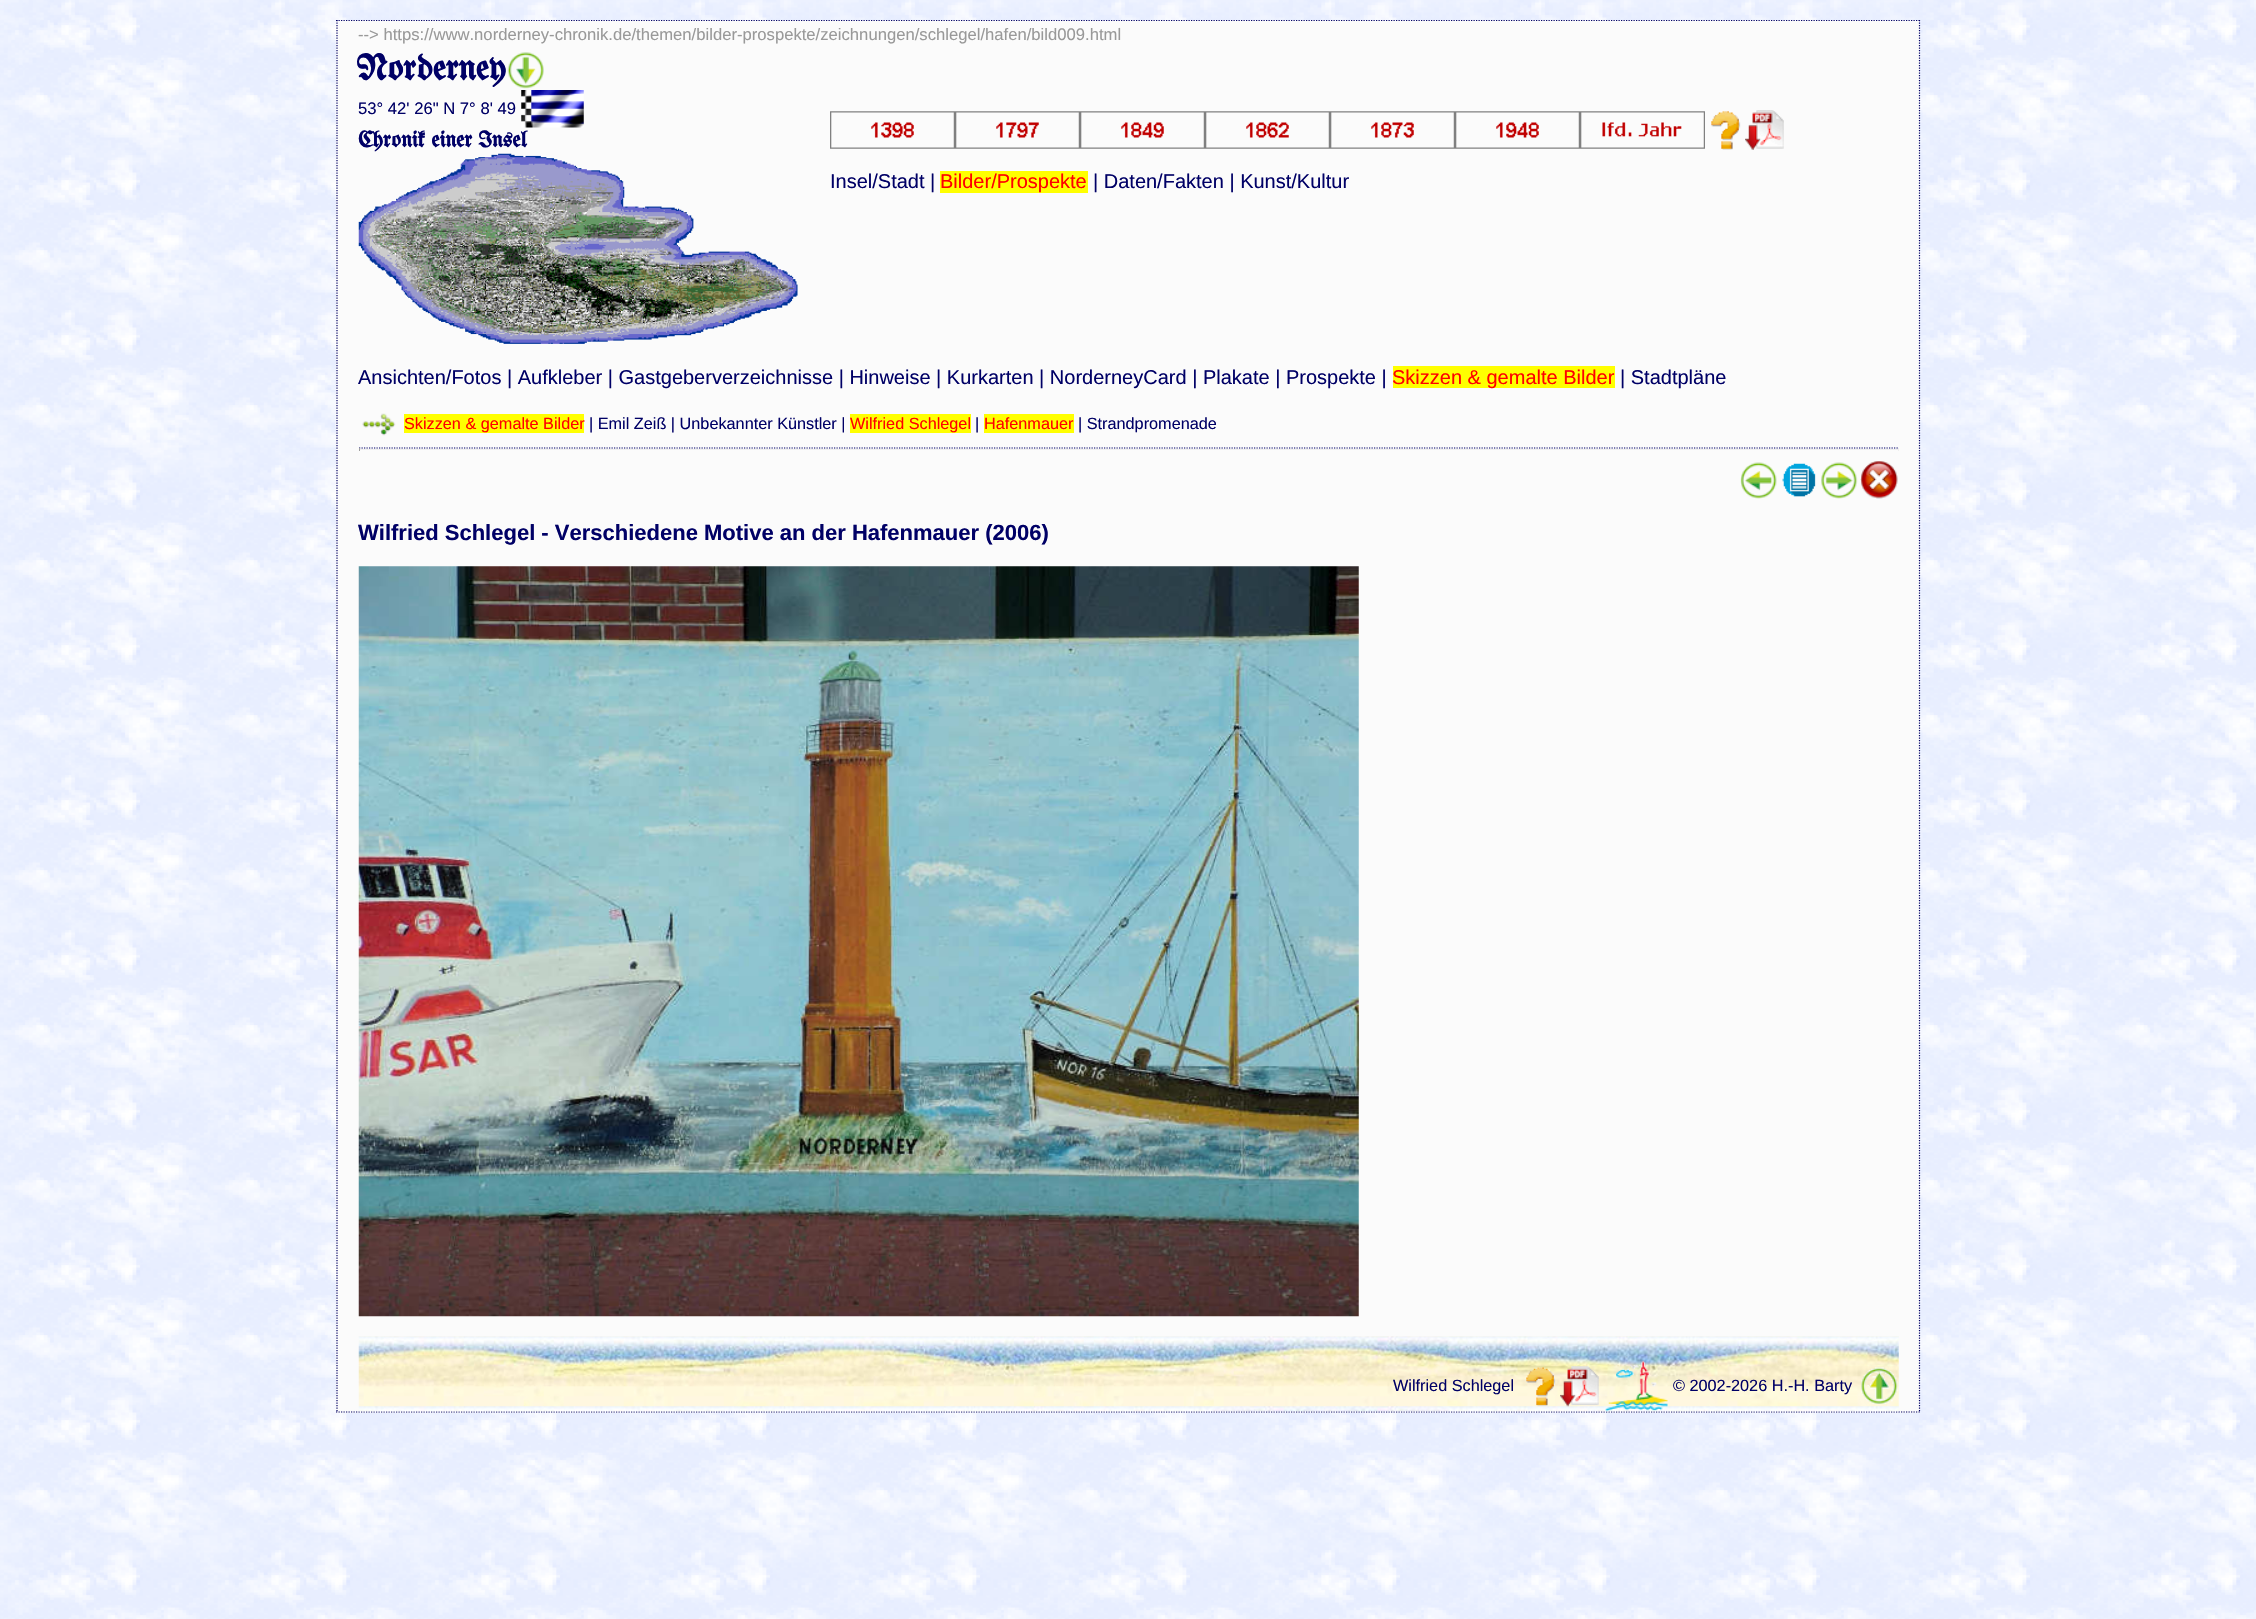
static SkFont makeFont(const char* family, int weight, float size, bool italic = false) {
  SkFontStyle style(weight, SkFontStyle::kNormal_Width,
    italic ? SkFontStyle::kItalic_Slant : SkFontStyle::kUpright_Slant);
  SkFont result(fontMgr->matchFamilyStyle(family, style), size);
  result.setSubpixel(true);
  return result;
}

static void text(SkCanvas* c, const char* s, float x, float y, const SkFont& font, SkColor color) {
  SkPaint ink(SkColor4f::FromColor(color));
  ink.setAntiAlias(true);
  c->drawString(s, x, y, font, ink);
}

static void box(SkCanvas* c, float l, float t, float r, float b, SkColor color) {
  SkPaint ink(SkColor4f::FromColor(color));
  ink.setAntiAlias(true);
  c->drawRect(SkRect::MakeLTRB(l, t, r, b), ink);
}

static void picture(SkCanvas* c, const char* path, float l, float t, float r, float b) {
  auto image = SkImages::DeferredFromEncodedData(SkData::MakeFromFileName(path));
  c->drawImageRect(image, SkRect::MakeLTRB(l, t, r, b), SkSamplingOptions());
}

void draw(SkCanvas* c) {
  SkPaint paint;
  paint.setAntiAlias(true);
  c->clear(0xffffffff);
  picture(c, "img_01.png", 0, 0, 2256, 1619);
  box(c, 336, 20, 1920, 1413, 0xfffbfbfb);
  paint.setStyle(SkPaint::kStroke_Style);
  paint.setStrokeWidth(1.2f);
  paint.setColor(0xff000066);
  paint.setPathEffect(SkDashPathEffect::Make({{1.25f, 1.25f}}, 0));
  c->drawPath(SkPathBuilder().moveTo(336, 20.5f).lineTo(1920, 20.5f).detach(), paint);
  paint.setPathEffect(nullptr);
  paint.setPathEffect(SkDashPathEffect::Make({{1.25f, 1.25f}}, 0));
  c->drawPath(SkPathBuilder().moveTo(1919.5f, 20).lineTo(1919.5f, 1412.5f).detach(), paint);
  paint.setPathEffect(nullptr);
  paint.setPathEffect(SkDashPathEffect::Make({{1.25f, 1.25f}}, 0));
  c->drawPath(SkPathBuilder().moveTo(336, 1412).lineTo(1920, 1412).detach(), paint);
  paint.setPathEffect(nullptr);
  paint.setPathEffect(SkDashPathEffect::Make({{1.25f, 1.25f}}, 0));
  c->drawPath(SkPathBuilder().moveTo(337, 20).lineTo(337, 1412.5f).detach(), paint);
  paint.setPathEffect(nullptr);
  SkFont face1 = makeFont("Liberation Sans", 400, 16.65f);
  text(c, "--> https://www.norderney-chronik.de/themen/bilder-prospekte/zeichnungen/schlegel/hafen/bild009.html", 358, 40, face1, 0xff999999);
  SkFont face2 = makeFont("UnifrakturMaguntia", 700, 36);
  text(c, "Norderney", 358, 80, face2, 0xff000066);
  picture(c, "img_02.png", 507, 52, 544, 89);
  text(c, "53° 42' 26\" N 7° 8' 49", 358, 114, face1, 0xff000066);
  picture(c, "img_03.png", 521, 90, 584, 128);
  SkFont face3 = makeFont("UnifrakturMaguntia", 700, 22.5f);
  text(c, "Chronik einer Insel", 358, 147, face3, 0xff000066);
  picture(c, "img_04.png", 358, 153, 798, 344);
  picture(c, "img_05.png", 830, 111, 955, 149);
  picture(c, "img_06.png", 955, 111, 1080, 149);
  picture(c, "img_07.png", 1080, 111, 1205, 149);
  picture(c, "img_08.png", 1205, 111, 1330, 149);
  picture(c, "img_09.png", 1330, 111, 1455, 149);
  picture(c, "img_10.png", 1455, 111, 1580, 149);
  picture(c, "img_11.png", 1580, 111, 1705, 149);
  picture(c, "img_12.png", 1711, 111, 1741, 150);
  picture(c, "img_13.png", 1745, 110, 1784, 150);
  SkFont face4 = makeFont("Liberation Sans", 400, 20);
  text(c, "Insel/Stadt |", 830, 188, face4, 0xff000066);
  box(c, 940, 171, 1088, 193, 0xffffff00);
  text(c, "Bilder/Prospekte", 940, 188, face4, 0xffff0000);
  text(c, "| Daten/Fakten | Kunst/Kultur", 1093, 188, face4, 0xff000066);
  text(c, "Ansichten/Fotos | Aufkleber | Gastgeberverzeichnisse | Hinweise | Kurkarten | NorderneyCard | Plakate | Prospekte |", 358, 384, face4, 0xff000066);
  box(c, 1393, 366, 1615, 388, 0xffffff00);
  text(c, "Skizzen & gemalte Bilder", 1392, 384, face4, 0xffff0000);
  text(c, "| Stadtpläne", 1620, 384, face4, 0xff000066);
  picture(c, "img_14.png", 362, 413, 396, 436);
  box(c, 404, 414, 584, 433, 0xffffff00);
  SkFont face5 = makeFont("Liberation Sans", 400, 16.25f);
  text(c, "Skizzen & gemalte Bilder", 404, 429, face5, 0xffff0000);
  text(c, "| Emil Zeiß | Unbekannter Künstler |", 589, 429, face5, 0xff000066);
  box(c, 850, 414, 971, 433, 0xffffff00);
  text(c, "Wilfried Schlegel", 850, 429, face5, 0xffff0000);
  text(c, "|", 975, 429, face5, 0xff000066);
  box(c, 984, 414, 1074, 433, 0xffffff00);
  text(c, "Hafenmauer", 984, 429, face5, 0xffff0000);
  text(c, "| Strandpromenade", 1078, 429, face5, 0xff000066);
  paint.setPathEffect(SkDashPathEffect::Make({{1.25f, 1.25f}}, 0));
  c->drawPath(SkPathBuilder().moveTo(359, 448).lineTo(1899, 448).detach(), paint);
  paint.setPathEffect(nullptr);
  box(c, 1898, 448, 1899, 451, 0xffeeeeee);
  box(c, 359, 449, 1899, 450, 0xffeeeeee);
  box(c, 359, 448, 360, 451, 0xff9f9f9f);
  picture(c, "img_15.png", 1740, 462, 1777, 499);
  picture(c, "img_16.png", 1782, 463, 1816, 497);
  picture(c, "img_17.png", 1821, 462, 1858, 499);
  picture(c, "img_18.png", 1860, 461, 1898, 499);
  SkFont face6 = makeFont("Liberation Sans", 700, 22);
  text(c, "Wilfried Schlegel - Verschiedene Motive an der Hafenmauer (2006)", 358, 540, face6, 0xff000066);
  picture(c, "img_19.png", 358, 566, 1359, 1317);
  picture(c, "img_20.png", 358, 1336, 1899, 1412);
  text(c, "Wilfried Schlegel", 1393, 1391, face5, 0xff000066);
  picture(c, "img_21.png", 1526, 1367, 1556, 1407);
  picture(c, "img_22.png", 1560, 1366, 1599, 1407);
  picture(c, "img_23.png", 1605, 1361, 1668, 1412);
  text(c, "© 2002-2026 H.-H. Barty", 1673, 1391, face5, 0xff000066);
  picture(c, "img_24.png", 1861, 1367, 1898, 1404);
}
